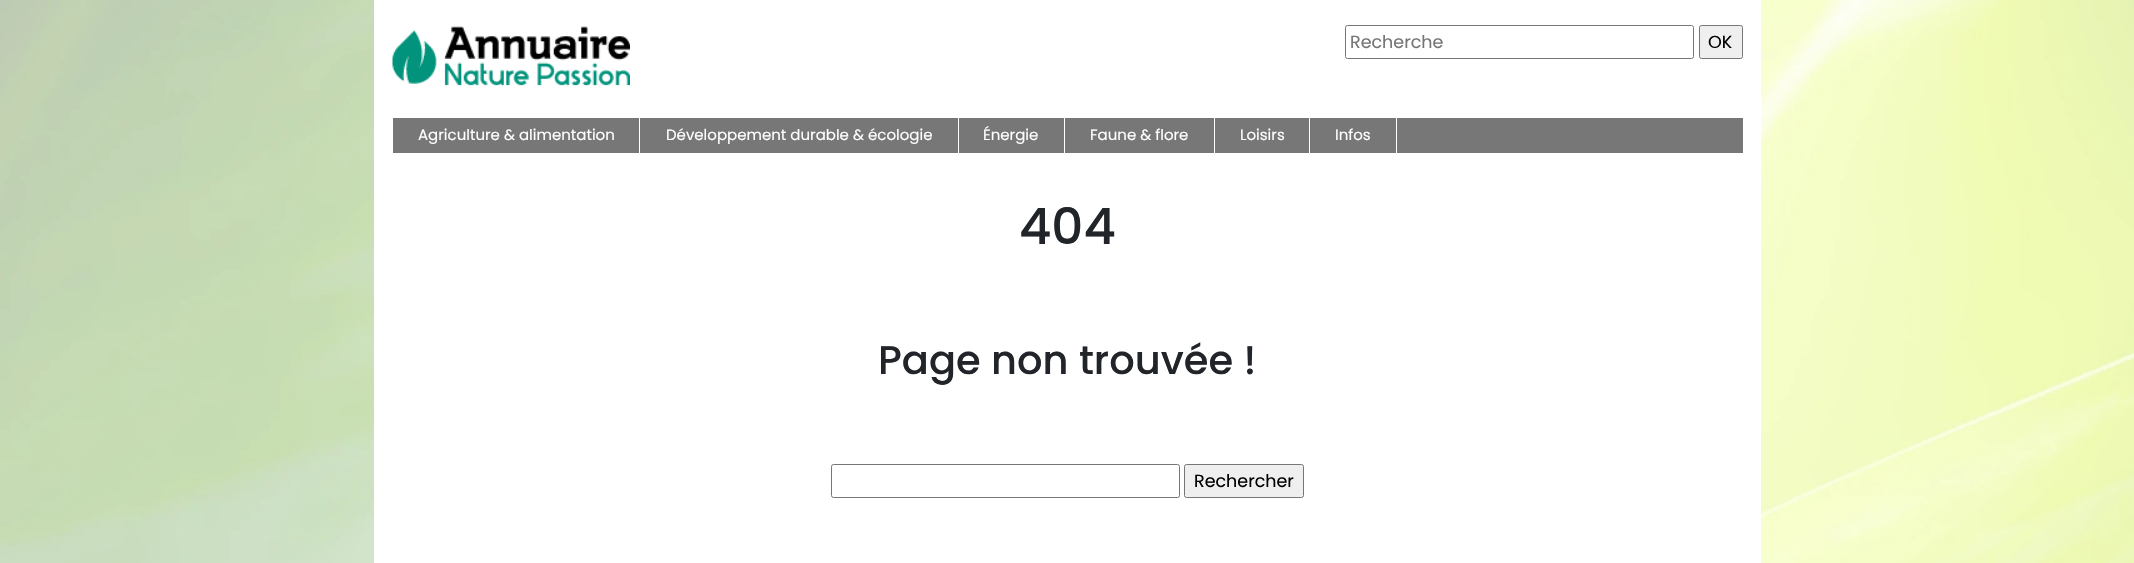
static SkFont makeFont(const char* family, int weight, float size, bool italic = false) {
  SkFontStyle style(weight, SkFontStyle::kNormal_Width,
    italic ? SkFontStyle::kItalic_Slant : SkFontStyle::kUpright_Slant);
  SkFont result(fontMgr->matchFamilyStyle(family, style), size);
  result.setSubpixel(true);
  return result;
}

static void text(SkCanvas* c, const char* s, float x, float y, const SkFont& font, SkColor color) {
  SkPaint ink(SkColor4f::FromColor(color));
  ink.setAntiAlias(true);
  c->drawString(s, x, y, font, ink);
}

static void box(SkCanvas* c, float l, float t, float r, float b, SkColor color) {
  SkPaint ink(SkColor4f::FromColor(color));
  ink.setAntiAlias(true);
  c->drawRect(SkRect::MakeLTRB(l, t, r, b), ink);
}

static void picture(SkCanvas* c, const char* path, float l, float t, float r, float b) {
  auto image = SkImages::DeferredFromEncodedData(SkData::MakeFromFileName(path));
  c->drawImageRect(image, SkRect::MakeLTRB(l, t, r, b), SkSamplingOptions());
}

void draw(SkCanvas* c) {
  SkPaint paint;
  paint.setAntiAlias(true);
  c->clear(0xffffffff);
  picture(c, "img_01.png", 0, 0, 2134, 563);
  box(c, 374, 0, 1761, 563, 0xffffffff);
  picture(c, "img_02.png", 392, 26, 630, 86);
  paint.setStyle(SkPaint::kStroke_Style);
  paint.setStrokeWidth(1);
  paint.setColor(0xff767676);
  c->drawRoundRect(SkRect::MakeLTRB(1345.5f, 25.5f, 1693.5f, 58.5f), 2, 2, paint);
  SkFont face1 = makeFont("Poppins", 400, 17.5f);
  text(c, "Recherche", 1350, 48, face1, 0xff757575);
  paint.setStyle(SkPaint::kFill_Style);
  paint.setColor(0xffefefef);
  c->drawRoundRect(SkRect::MakeLTRB(1699.5f, 25.5f, 1742.5f, 58.5f), 2, 2, paint);
  paint.setStyle(SkPaint::kStroke_Style);
  paint.setColor(0xff767676);
  c->drawRoundRect(SkRect::MakeLTRB(1699.5f, 25.5f, 1742.5f, 58.5f), 2, 2, paint);
  text(c, "OK", 1708, 48, face1, 0xff000000);
  box(c, 393, 118, 1743, 153, 0xff777777);
  box(c, 639, 118, 640, 153, 0xffffffff);
  SkFont face2 = makeFont("Poppins", 400, 15);
  text(c, "Agriculture & alimentation", 418, 140, face2, 0xffffffff);
  box(c, 958, 118, 959, 153, 0xffffffff);
  text(c, "Développement durable & écologie", 666, 140, face2, 0xffffffff);
  box(c, 1064, 118, 1065, 153, 0xffffffff);
  text(c, "Énergie", 983, 140, face2, 0xffffffff);
  box(c, 1214, 118, 1215, 153, 0xffffffff);
  text(c, "Faune & flore", 1090, 140, face2, 0xffffffff);
  box(c, 1309, 118, 1310, 153, 0xffffffff);
  text(c, "Loisirs", 1240, 140, face2, 0xffffffff);
  box(c, 1396, 118, 1397, 153, 0xffffffff);
  text(c, "Infos", 1335, 140, face2, 0xffffffff);
  SkFont face3 = makeFont("Poppins", 500, 50);
  text(c, "404", 1019, 244, face3, 0xff212529);
  SkFont face4 = makeFont("Poppins", 500, 40);
  text(c, "Page non trouvée !", 878, 374, face4, 0xff212529);
  c->drawRoundRect(SkRect::MakeLTRB(831.5f, 464.5f, 1179.5f, 497.5f), 2, 2, paint);
  paint.setStyle(SkPaint::kFill_Style);
  paint.setColor(0xffefefef);
  c->drawRoundRect(SkRect::MakeLTRB(1184.5f, 464.5f, 1303.5f, 497.5f), 2, 2, paint);
  paint.setStyle(SkPaint::kStroke_Style);
  paint.setColor(0xff767676);
  c->drawRoundRect(SkRect::MakeLTRB(1184.5f, 464.5f, 1303.5f, 497.5f), 2, 2, paint);
  text(c, "Rechercher", 1194, 487, face1, 0xff000000);
}
